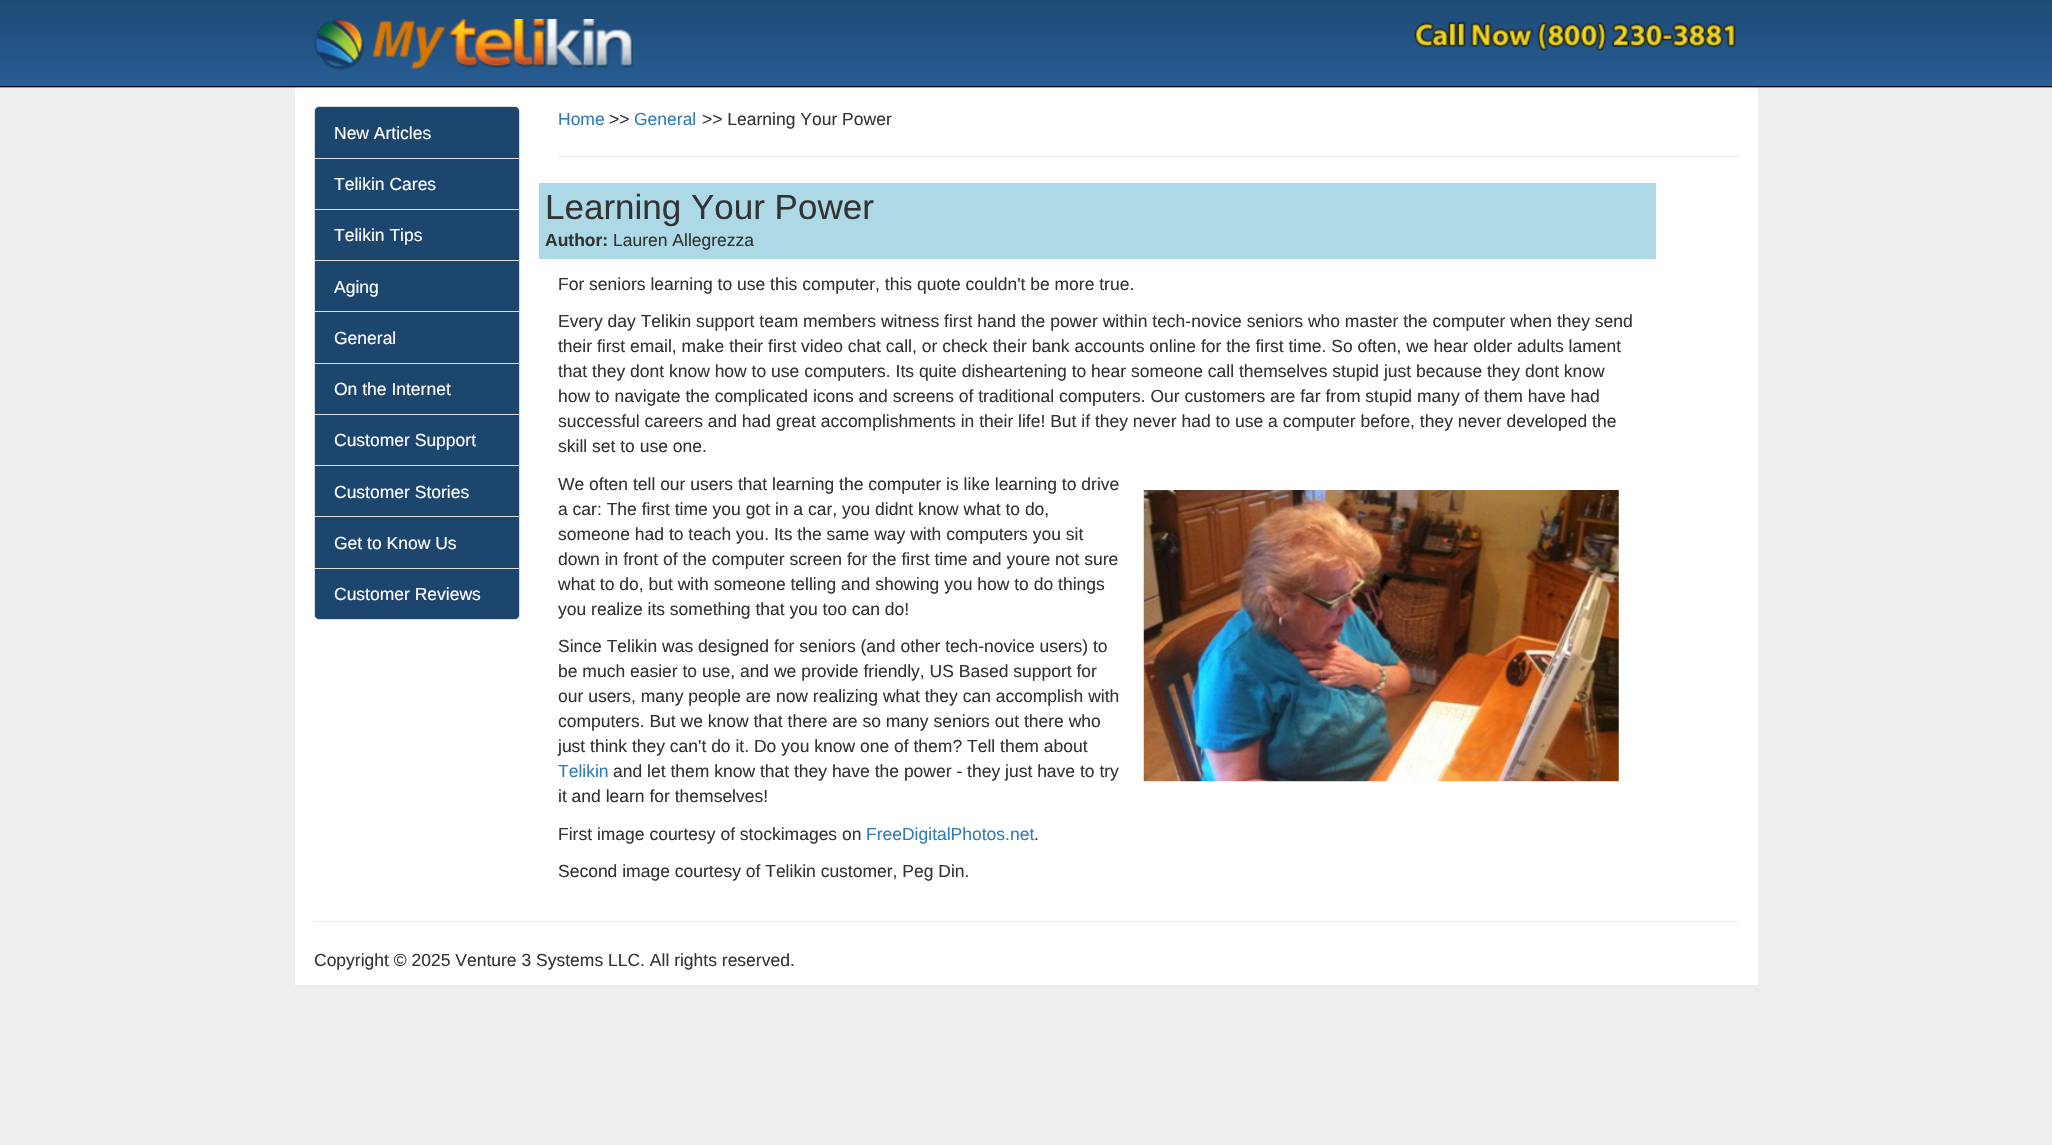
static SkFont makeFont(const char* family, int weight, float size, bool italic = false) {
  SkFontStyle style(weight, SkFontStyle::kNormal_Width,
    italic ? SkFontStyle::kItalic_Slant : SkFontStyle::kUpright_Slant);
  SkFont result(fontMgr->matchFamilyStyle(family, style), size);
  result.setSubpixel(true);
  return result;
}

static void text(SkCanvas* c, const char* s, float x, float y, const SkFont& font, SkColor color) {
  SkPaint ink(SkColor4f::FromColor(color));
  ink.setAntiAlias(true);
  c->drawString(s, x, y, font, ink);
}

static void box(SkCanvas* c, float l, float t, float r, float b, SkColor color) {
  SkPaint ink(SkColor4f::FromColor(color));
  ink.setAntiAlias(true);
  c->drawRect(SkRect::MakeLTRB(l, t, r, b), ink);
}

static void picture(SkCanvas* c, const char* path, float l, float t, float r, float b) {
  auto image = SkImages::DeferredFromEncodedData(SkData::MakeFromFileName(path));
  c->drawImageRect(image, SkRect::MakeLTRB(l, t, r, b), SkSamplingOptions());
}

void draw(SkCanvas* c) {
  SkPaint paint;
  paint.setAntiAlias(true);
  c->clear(0xffeeeeee);
  box(c, 295, 87, 1758, 985, 0xffffffff);
  picture(c, "img_01.png", 0, 0, 2052, 88);
  box(c, 0, 86, 2052, 87, 0xff080808);
  picture(c, "img_02.png", 314, 19, 633, 71);
  picture(c, "img_03.png", 1414, 21, 1736, 51);
  paint.setColor(0xff1d466f);
  c->drawPath(SkPathBuilder().moveTo(319, 106.5f).lineTo(515, 106.5f).cubicTo(517.5f, 106.5f, 519.5f, 108.5f, 519.5f, 111).lineTo(519.5f, 158.5f).lineTo(314.5f, 158.5f).lineTo(314.5f, 111).cubicTo(314.5f, 108.5f, 316.5f, 106.5f, 319, 106.5f).close().detach(), paint);
  paint.setStyle(SkPaint::kStroke_Style);
  paint.setStrokeWidth(1);
  paint.setColor(0xffdddddd);
  c->drawPath(SkPathBuilder().moveTo(319, 106.5f).lineTo(515, 106.5f).cubicTo(517.5f, 106.5f, 519.5f, 108.5f, 519.5f, 111).lineTo(519.5f, 158.5f).lineTo(314.5f, 158.5f).lineTo(314.5f, 111).cubicTo(314.5f, 108.5f, 316.5f, 106.5f, 319, 106.5f).close().detach(), paint);
  SkFont face1 = makeFont("Liberation Sans", 400, 17.5f);
  text(c, "New Articles", 334, 139, face1, 0xffffffff);
  paint.setStyle(SkPaint::kFill_Style);
  paint.setColor(0xff1d466f);
  c->drawRect(SkRect::MakeLTRB(314.5f, 158.5f, 519.5f, 209.5f), paint);
  paint.setStyle(SkPaint::kStroke_Style);
  paint.setColor(0xffdddddd);
  c->drawRect(SkRect::MakeLTRB(314.5f, 158.5f, 519.5f, 209.5f), paint);
  text(c, "Telikin Cares", 334, 190, face1, 0xffffffff);
  paint.setStyle(SkPaint::kFill_Style);
  paint.setColor(0xff1d466f);
  c->drawRect(SkRect::MakeLTRB(314.5f, 209.5f, 519.5f, 260.5f), paint);
  paint.setStyle(SkPaint::kStroke_Style);
  paint.setColor(0xffdddddd);
  c->drawRect(SkRect::MakeLTRB(314.5f, 209.5f, 519.5f, 260.5f), paint);
  text(c, "Telikin Tips", 334, 241, face1, 0xffffffff);
  box(c, 315, 261, 519, 311, 0xff1d466f);
  c->drawRect(SkRect::MakeLTRB(314.5f, 260.5f, 519.5f, 312.5f), paint);
  text(c, "Aging", 334, 293, face1, 0xffffffff);
  paint.setStyle(SkPaint::kFill_Style);
  paint.setColor(0xff1d466f);
  c->drawRect(SkRect::MakeLTRB(314.5f, 311.5f, 519.5f, 363.5f), paint);
  paint.setStyle(SkPaint::kStroke_Style);
  paint.setColor(0xffdddddd);
  c->drawRect(SkRect::MakeLTRB(314.5f, 311.5f, 519.5f, 363.5f), paint);
  text(c, "General", 334, 344, face1, 0xffffffff);
  paint.setStyle(SkPaint::kFill_Style);
  paint.setColor(0xff1d466f);
  c->drawRect(SkRect::MakeLTRB(314.5f, 363.5f, 519.5f, 414.5f), paint);
  paint.setStyle(SkPaint::kStroke_Style);
  paint.setColor(0xffdddddd);
  c->drawRect(SkRect::MakeLTRB(314.5f, 363.5f, 519.5f, 414.5f), paint);
  text(c, "On the Internet", 334, 395, face1, 0xffffffff);
  paint.setStyle(SkPaint::kFill_Style);
  paint.setColor(0xff1d466f);
  c->drawRect(SkRect::MakeLTRB(314.5f, 414.5f, 519.5f, 465.5f), paint);
  paint.setStyle(SkPaint::kStroke_Style);
  paint.setColor(0xffdddddd);
  c->drawRect(SkRect::MakeLTRB(314.5f, 414.5f, 519.5f, 465.5f), paint);
  text(c, "Customer Support", 334, 446, face1, 0xffffffff);
  box(c, 315, 466, 519, 516, 0xff1d466f);
  c->drawRect(SkRect::MakeLTRB(314.5f, 465.5f, 519.5f, 517.5f), paint);
  text(c, "Customer Stories", 334, 498, face1, 0xffffffff);
  paint.setStyle(SkPaint::kFill_Style);
  paint.setColor(0xff1d466f);
  c->drawRect(SkRect::MakeLTRB(314.5f, 516.5f, 519.5f, 568.5f), paint);
  paint.setStyle(SkPaint::kStroke_Style);
  paint.setColor(0xffdddddd);
  c->drawRect(SkRect::MakeLTRB(314.5f, 516.5f, 519.5f, 568.5f), paint);
  text(c, "Get to Know Us", 334, 549, face1, 0xffffffff);
  paint.setStyle(SkPaint::kFill_Style);
  paint.setColor(0xff1d466f);
  c->drawPath(SkPathBuilder().moveTo(314.5f, 568.5f).lineTo(519.5f, 568.5f).lineTo(519.5f, 615).cubicTo(519.5f, 617.5f, 517.5f, 619.5f, 515, 619.5f).lineTo(319, 619.5f).cubicTo(316.5f, 619.5f, 314.5f, 617.5f, 314.5f, 615).close().detach(), paint);
  paint.setStyle(SkPaint::kStroke_Style);
  paint.setColor(0xffdddddd);
  c->drawPath(SkPathBuilder().moveTo(314.5f, 568.5f).lineTo(519.5f, 568.5f).lineTo(519.5f, 615).cubicTo(519.5f, 617.5f, 517.5f, 619.5f, 515, 619.5f).lineTo(319, 619.5f).cubicTo(316.5f, 619.5f, 314.5f, 617.5f, 314.5f, 615).close().detach(), paint);
  text(c, "Customer Reviews", 334, 600, face1, 0xffffffff);
  text(c, "Home", 558, 125, face1, 0xff337ab7);
  text(c, ">>", 609, 125, face1, 0xff333333);
  text(c, "General", 634, 125, face1, 0xff337ab7);
  text(c, ">> Learning Your Power", 702, 125, face1, 0xff333333);
  box(c, 558, 156, 1739, 157, 0xffeeeeee);
  box(c, 539, 183, 1656, 259, 0xffadd8e6);
  SkFont face2 = makeFont("Liberation Sans", 400, 35);
  text(c, "Learning Your Power", 545, 219, face2, 0xff333333);
  SkFont face3 = makeFont("Liberation Sans", 700, 17.5f);
  text(c, "Author:", 545, 246, face3, 0xff333333);
  text(c, "Lauren Allegrezza", 613, 246, face1, 0xff333333);
  text(c, "For seniors learning to use this computer, this quote couldn't be more true.", 558, 290, face1, 0xff333333);
  text(c, "Every day Telikin support team members witness first hand the power within tech-novice seniors who master the computer when they send", 558, 327, face1, 0xff333333);
  text(c, "their first email, make their first video chat call, or check their bank accounts online for the first time. So often, we hear older adults lament", 558, 352, face1, 0xff333333);
  text(c, "that they dont know how to use computers. Its quite disheartening to hear someone call themselves stupid just because they dont know", 558, 377, face1, 0xff333333);
  text(c, "how to navigate the complicated icons and screens of traditional computers. Our customers are far from stupid many of them have had", 558, 402, face1, 0xff333333);
  text(c, "successful careers and had great accomplishments in their life! But if they never had to use a computer before, they never developed the", 558, 427, face1, 0xff333333);
  text(c, "skill set to use one.", 558, 452, face1, 0xff333333);
  text(c, "We often tell our users that learning the computer is like learning to drive", 558, 490, face1, 0xff333333);
  text(c, "a car: The first time you got in a car, you didnt know what to do,", 558, 515, face1, 0xff333333);
  picture(c, "img_04.png", 1143, 490, 1619, 782);
  text(c, "someone had to teach you. Its the same way with computers you sit", 558, 540, face1, 0xff333333);
  text(c, "down in front of the computer screen for the first time and youre not sure", 558, 565, face1, 0xff333333);
  text(c, "what to do, but with someone telling and showing you how to do things", 558, 590, face1, 0xff333333);
  text(c, "you realize its something that you too can do!", 558, 615, face1, 0xff333333);
  text(c, "Since Telikin was designed for seniors (and other tech-novice users) to", 558, 652, face1, 0xff333333);
  text(c, "be much easier to use, and we provide friendly, US Based support for", 558, 677, face1, 0xff333333);
  text(c, "our users, many people are now realizing what they can accomplish with", 558, 702, face1, 0xff333333);
  text(c, "computers. But we know that there are so many seniors out there who", 558, 727, face1, 0xff333333);
  text(c, "just think they can't do it. Do you know one of them? Tell them about", 558, 752, face1, 0xff333333);
  text(c, "Telikin", 558, 777, face1, 0xff337ab7);
  text(c, "and let them know that they have the power - they just have to try", 613, 777, face1, 0xff333333);
  text(c, "it and learn for themselves!", 558, 802, face1, 0xff333333);
  text(c, "First image courtesy of stockimages on", 558, 840, face1, 0xff333333);
  text(c, "FreeDigitalPhotos.net", 866, 840, face1, 0xff337ab7);
  text(c, ".", 1034, 840, face1, 0xff333333);
  text(c, "Second image courtesy of Telikin customer, Peg Din.", 558, 877, face1, 0xff333333);
  box(c, 314, 921, 1739, 922, 0xffeeeeee);
  text(c, "Copyright © 2025 Venture 3 Systems LLC. All rights reserved.", 314, 966, face1, 0xff333333);
}
